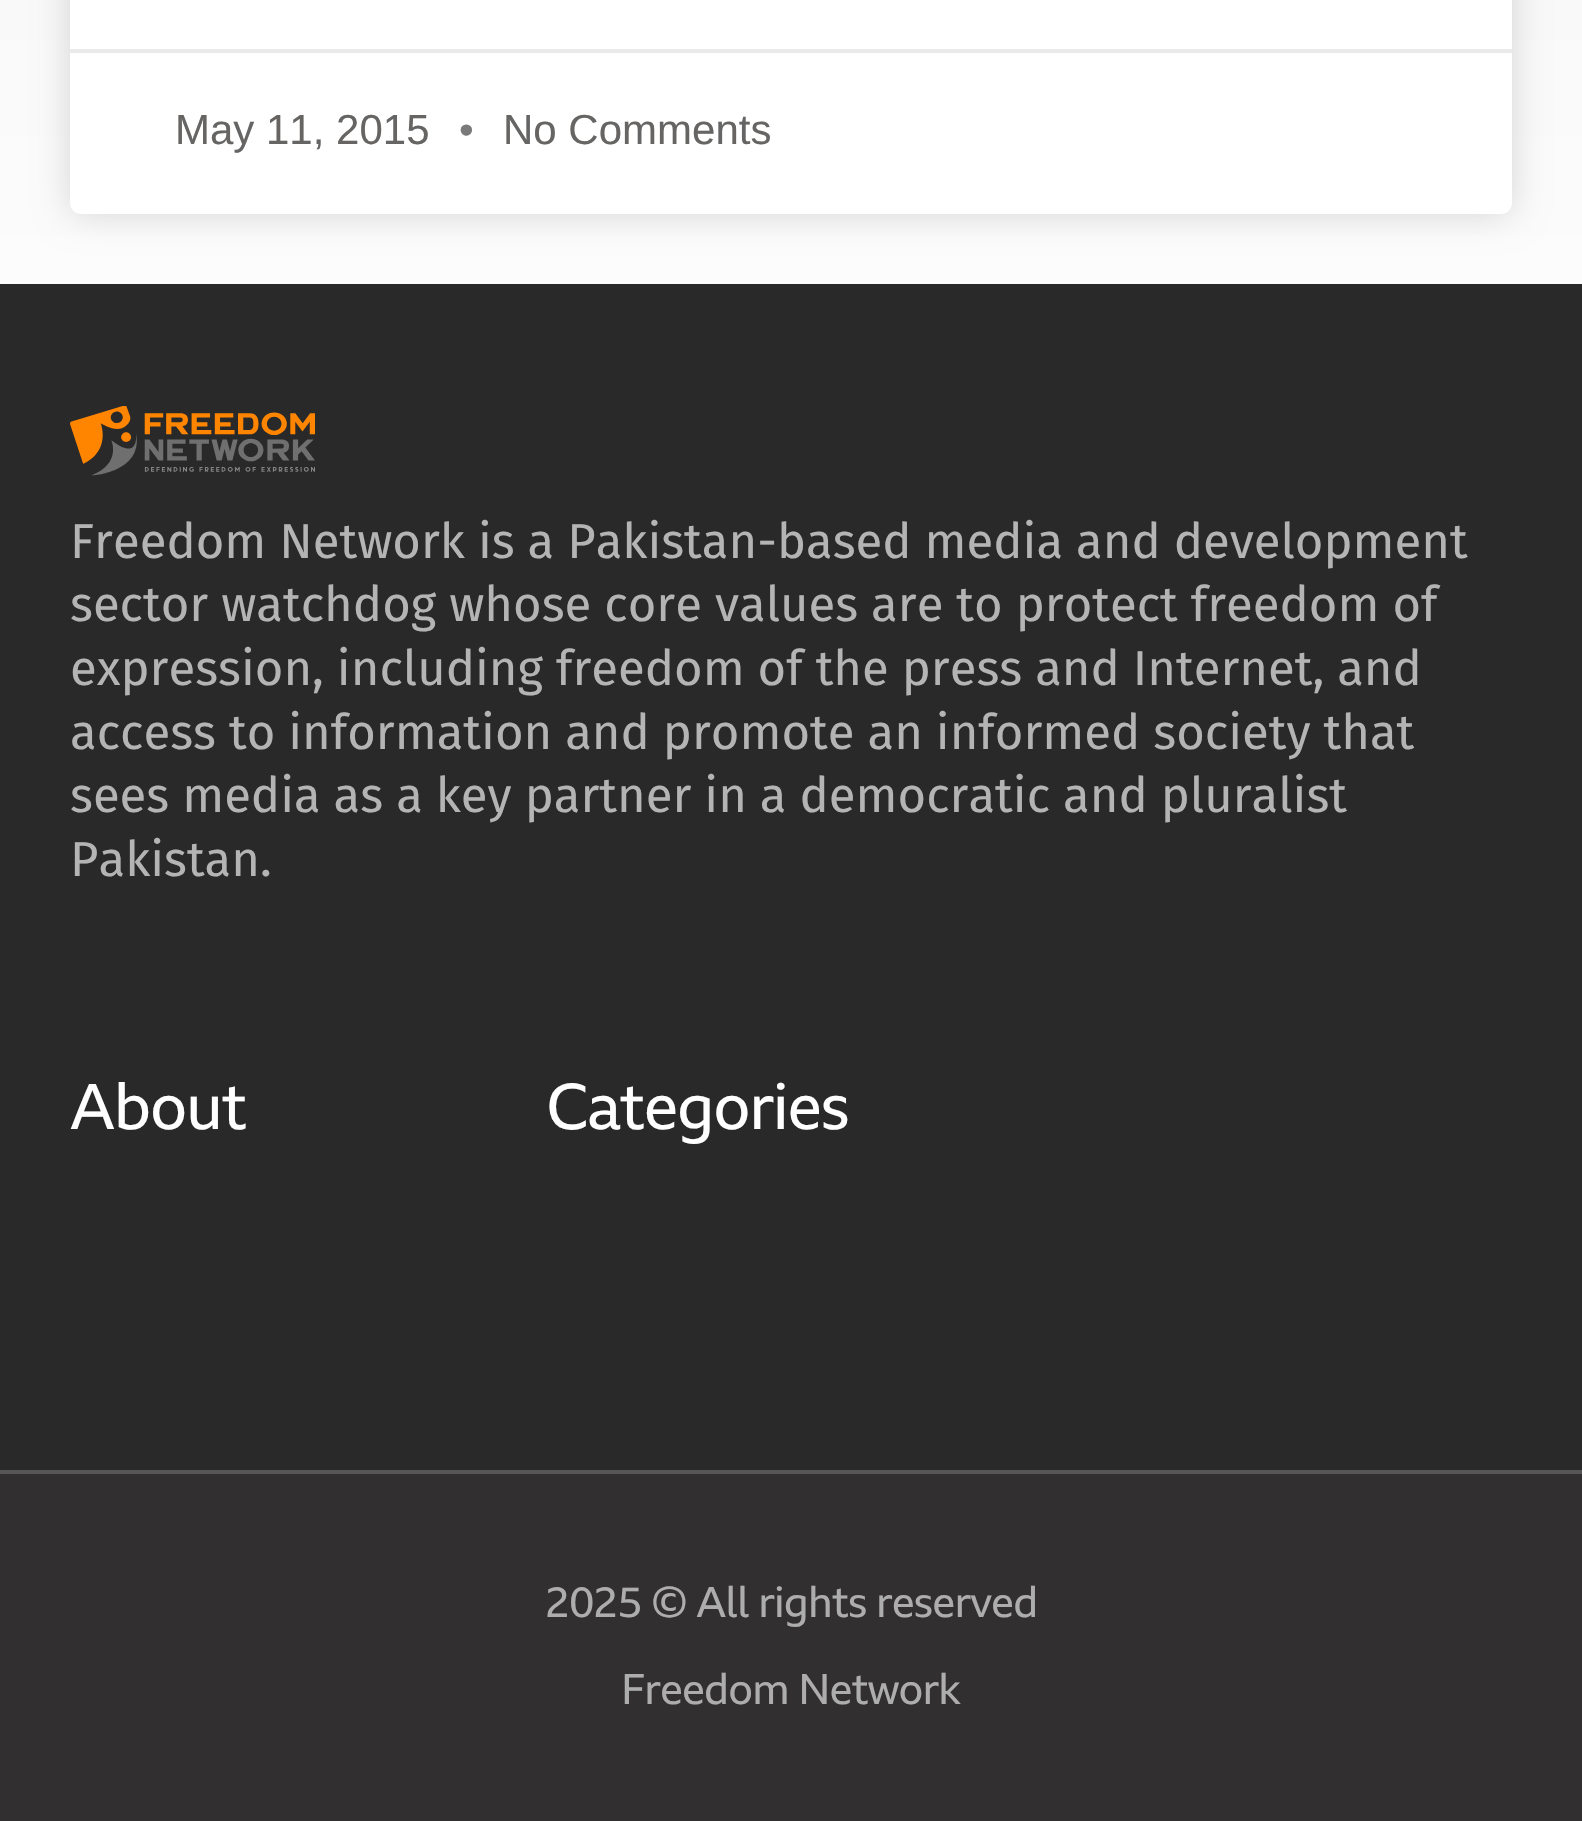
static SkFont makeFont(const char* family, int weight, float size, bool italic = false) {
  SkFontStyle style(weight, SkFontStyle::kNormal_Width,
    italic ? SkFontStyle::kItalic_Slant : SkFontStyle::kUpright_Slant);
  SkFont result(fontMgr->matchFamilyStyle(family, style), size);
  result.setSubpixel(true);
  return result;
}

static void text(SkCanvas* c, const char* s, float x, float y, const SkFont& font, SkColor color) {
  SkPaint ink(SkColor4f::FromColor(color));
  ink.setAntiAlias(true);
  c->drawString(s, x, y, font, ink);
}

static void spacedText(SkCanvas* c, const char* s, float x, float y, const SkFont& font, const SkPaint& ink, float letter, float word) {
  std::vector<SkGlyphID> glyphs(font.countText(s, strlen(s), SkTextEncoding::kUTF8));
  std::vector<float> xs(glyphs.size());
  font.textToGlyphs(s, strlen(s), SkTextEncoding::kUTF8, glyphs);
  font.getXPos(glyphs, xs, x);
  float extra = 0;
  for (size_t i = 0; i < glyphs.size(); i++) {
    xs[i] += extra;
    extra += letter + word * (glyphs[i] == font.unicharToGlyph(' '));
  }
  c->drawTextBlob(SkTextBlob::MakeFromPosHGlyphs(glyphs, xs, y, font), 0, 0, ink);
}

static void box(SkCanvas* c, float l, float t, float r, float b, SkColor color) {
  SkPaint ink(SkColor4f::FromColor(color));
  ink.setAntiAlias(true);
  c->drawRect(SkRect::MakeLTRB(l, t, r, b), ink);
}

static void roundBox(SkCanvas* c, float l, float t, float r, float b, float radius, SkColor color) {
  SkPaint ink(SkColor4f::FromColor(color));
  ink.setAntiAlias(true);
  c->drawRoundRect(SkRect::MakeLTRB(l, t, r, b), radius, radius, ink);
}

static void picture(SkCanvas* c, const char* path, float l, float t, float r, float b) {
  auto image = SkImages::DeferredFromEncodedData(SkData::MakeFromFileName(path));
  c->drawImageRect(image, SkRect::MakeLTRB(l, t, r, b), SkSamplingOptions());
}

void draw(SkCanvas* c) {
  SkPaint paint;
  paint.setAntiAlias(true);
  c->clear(0xffffffff);
  {
    const SkColor colors[] = {0xffeeeeee, 0xfffcfcfc};
    const float stops[] = {0.43f, 1};
    const SkPoint ends[] = {{791, -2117}, {791, 284}};
    paint.setShader(SkGradientShader::MakeLinear(ends, colors, stops, 2, SkTileMode::kClamp));
    paint.setAlpha(255);
  }
  c->drawRect(SkRect::MakeLTRB(0, 0, 1582, 284), paint);
  paint.setShader(nullptr);
  paint.setColor(0x26000000);
  paint.setMaskFilter(SkMaskFilter::MakeBlur(kNormal_SkBlurStyle, 17.5f));
  c->drawRoundRect(SkRect::MakeLTRB(70, -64, 1512, 214), 11, 11, paint);
  paint.setMaskFilter(nullptr);
  roundBox(c, 70, -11, 1512, 214, 11, 0xffffffff);
  box(c, 70, 49, 1512, 53, 0xffeaeaea);
  SkFont face1 = makeFont("Liberation Sans", 400, 42);
  text(c, "May 11, 2015", 175, 144, face1, 0xff666564);
  text(c, "•", 459, 144, face1, 0xff7a7a7a);
  text(c, "No Comments", 503, 144, face1, 0xff666564);
  box(c, 0, 284, 1582, 1470, 0xff292929);
  picture(c, "img_01.png", 70, 406, 315, 476);
  SkFont face2 = makeFont("Fira Sans", 400, 49);
  text(c, "Freedom Network is a Pakistan-based media and development", 70, 558, face2, 0xffb4b4b4);
  text(c, "sector watchdog whose core values are to protect freedom of", 70, 621, face2, 0xffb4b4b4);
  text(c, "expression, including freedom of the press and Internet, and", 70, 685, face2, 0xffb4b4b4);
  text(c, "access to information and promote an informed society that", 70, 749, face2, 0xffb4b4b4);
  text(c, "sees media as a key partner in a democratic and pluralist", 70, 812, face2, 0xffb4b4b4);
  text(c, "Pakistan.", 70, 876, face2, 0xffb4b4b4);
  SkFont face3 = makeFont("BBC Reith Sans", 400, 63);
  paint.setColor(0xffffffff);
  spacedText(c, "About", 70, 1129, face3, paint, -1.25f, 0);
  spacedText(c, "Categories", 546, 1129, face3, paint, -1.25f, 0);
  box(c, 0, 1474, 1582, 1821, 0xff312f2f);
  box(c, 0, 1470, 1582, 1474, 0xff585757);
  SkFont face4 = makeFont("BBC Reith Sans", 400, 42);
  paint.setColor(0xffadadad);
  spacedText(c, "2025 © All rights reserved", 545, 1617, face4, paint, -0.85f, 0);
  spacedText(c, "Freedom Network", 621, 1704, face4, paint, -0.85f, 0);
}
